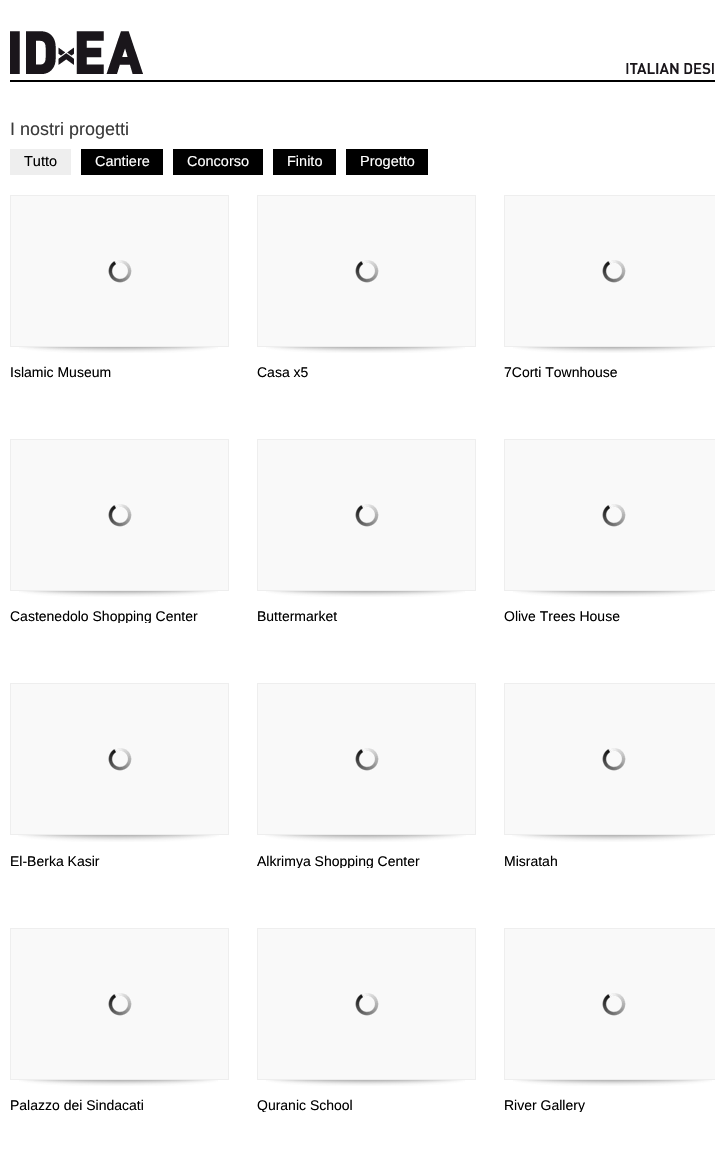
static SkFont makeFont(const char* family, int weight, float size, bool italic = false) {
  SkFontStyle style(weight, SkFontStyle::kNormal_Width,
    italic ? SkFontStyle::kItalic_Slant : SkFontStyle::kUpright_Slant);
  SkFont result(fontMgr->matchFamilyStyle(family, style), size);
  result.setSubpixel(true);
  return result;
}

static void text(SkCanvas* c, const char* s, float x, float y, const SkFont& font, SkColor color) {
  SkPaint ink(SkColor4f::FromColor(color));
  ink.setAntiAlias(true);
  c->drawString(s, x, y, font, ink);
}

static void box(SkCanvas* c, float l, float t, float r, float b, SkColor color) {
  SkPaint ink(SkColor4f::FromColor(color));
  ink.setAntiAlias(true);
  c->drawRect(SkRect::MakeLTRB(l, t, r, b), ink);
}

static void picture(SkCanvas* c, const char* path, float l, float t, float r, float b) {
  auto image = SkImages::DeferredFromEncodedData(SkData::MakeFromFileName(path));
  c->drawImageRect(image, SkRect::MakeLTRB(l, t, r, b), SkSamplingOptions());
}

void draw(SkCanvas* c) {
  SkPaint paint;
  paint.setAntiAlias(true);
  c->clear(0xffffffff);
  box(c, 10, 80, 715, 82, 0xff000000);
  picture(c, "img_01.png", 10, 31, 714, 74);
  SkFont face1 = makeFont("Liberation Sans", 400, 18);
  text(c, "I nostri progetti", 10, 135, face1, 0xff3b3b3b);
  box(c, 10, 149, 71, 175, 0xffeeeeee);
  SkFont face2 = makeFont("Liberation Sans", 400, 14.5f);
  text(c, "Tutto", 24, 166, face2, 0xff000000);
  box(c, 81, 149, 163, 175, 0xff000000);
  text(c, "Cantiere", 95, 166, face2, 0xffffffff);
  box(c, 173, 149, 263, 175, 0xff000000);
  text(c, "Concorso", 187, 166, face2, 0xffffffff);
  box(c, 273, 149, 336, 175, 0xff000000);
  text(c, "Finito", 287, 166, face2, 0xffffffff);
  box(c, 346, 149, 428, 175, 0xff000000);
  text(c, "Progetto", 360, 166, face2, 0xffffffff);
  box(c, 11, 196, 228, 346, 0xfff9f9f9);
  picture(c, "img_02.png", 108, 260, 132, 283);
  paint.setStyle(SkPaint::kStroke_Style);
  paint.setStrokeWidth(1);
  paint.setColor(0xffeeeeee);
  c->drawRect(SkRect::MakeLTRB(10.5f, 195.5f, 228.5f, 346.5f), paint);
  picture(c, "img_03.png", 19, 347, 218, 353);
  SkFont face3 = makeFont("Liberation Sans", 400, 14);
  text(c, "Islamic Museum", 10, 377, face3, 0xff000000);
  box(c, 258, 196, 475, 346, 0xfff9f9f9);
  picture(c, "img_02.png", 355, 260, 379, 283);
  c->drawRect(SkRect::MakeLTRB(257.5f, 195.5f, 475.5f, 346.5f), paint);
  picture(c, "img_03.png", 266, 347, 465, 353);
  text(c, "Casa x5", 257, 377, face3, 0xff000000);
  box(c, 505, 196, 715, 346, 0xfff9f9f9);
  picture(c, "img_02.png", 602, 260, 626, 283);
  c->drawRect(SkRect::MakeLTRB(504.5f, 195.5f, 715.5f, 346.5f), paint);
  picture(c, "img_03.png", 513, 347, 712, 353);
  text(c, "7Corti Townhouse", 504, 377, face3, 0xff000000);
  box(c, 11, 440, 228, 590, 0xfff9f9f9);
  picture(c, "img_02.png", 108, 504, 132, 527);
  c->drawRect(SkRect::MakeLTRB(10.5f, 439.5f, 228.5f, 590.5f), paint);
  picture(c, "img_03.png", 19, 591, 218, 597);
  c->save();
  c->clipRect(SkRect::MakeLTRB(10, 439, 229, 623));
  text(c, "Castenedolo Shopping Center", 10, 621, face3, 0xff000000);
  c->restore();
  box(c, 258, 440, 475, 590, 0xfff9f9f9);
  picture(c, "img_02.png", 355, 504, 379, 527);
  c->drawRect(SkRect::MakeLTRB(257.5f, 439.5f, 475.5f, 590.5f), paint);
  picture(c, "img_03.png", 266, 591, 465, 597);
  text(c, "Buttermarket", 257, 621, face3, 0xff000000);
  box(c, 505, 440, 715, 590, 0xfff9f9f9);
  picture(c, "img_02.png", 602, 504, 626, 527);
  c->drawRect(SkRect::MakeLTRB(504.5f, 439.5f, 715.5f, 590.5f), paint);
  picture(c, "img_03.png", 513, 591, 712, 597);
  text(c, "Olive Trees House", 504, 621, face3, 0xff000000);
  box(c, 11, 684, 228, 834, 0xfff9f9f9);
  picture(c, "img_02.png", 108, 748, 132, 771);
  c->drawRect(SkRect::MakeLTRB(10.5f, 683.5f, 228.5f, 834.5f), paint);
  picture(c, "img_04.png", 18, 835, 219, 842);
  text(c, "El-Berka Kasir", 10, 866, face3, 0xff000000);
  box(c, 258, 684, 475, 834, 0xfff9f9f9);
  picture(c, "img_02.png", 355, 748, 379, 771);
  c->drawRect(SkRect::MakeLTRB(257.5f, 683.5f, 475.5f, 834.5f), paint);
  picture(c, "img_04.png", 265, 835, 466, 842);
  c->save();
  c->clipRect(SkRect::MakeLTRB(257, 683, 476, 868));
  text(c, "Alkrimya Shopping Center", 257, 866, face3, 0xff000000);
  c->restore();
  box(c, 505, 684, 715, 834, 0xfff9f9f9);
  picture(c, "img_02.png", 602, 748, 626, 771);
  c->drawRect(SkRect::MakeLTRB(504.5f, 683.5f, 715.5f, 834.5f), paint);
  picture(c, "img_04.png", 512, 835, 713, 842);
  text(c, "Misratah", 504, 866, face3, 0xff000000);
  box(c, 11, 929, 228, 1079, 0xfff9f9f9);
  picture(c, "img_02.png", 108, 993, 132, 1016);
  c->drawRect(SkRect::MakeLTRB(10.5f, 928.5f, 228.5f, 1079.5f), paint);
  picture(c, "img_03.png", 19, 1080, 218, 1086);
  text(c, "Palazzo dei Sindacati", 10, 1110, face3, 0xff000000);
  box(c, 258, 929, 475, 1079, 0xfff9f9f9);
  picture(c, "img_02.png", 355, 993, 379, 1016);
  c->drawRect(SkRect::MakeLTRB(257.5f, 928.5f, 475.5f, 1079.5f), paint);
  picture(c, "img_03.png", 266, 1080, 465, 1086);
  c->save();
  c->clipRect(SkRect::MakeLTRB(257, 928, 476, 1112));
  text(c, "Quranic School", 257, 1110, face3, 0xff000000);
  c->restore();
  box(c, 505, 929, 715, 1079, 0xfff9f9f9);
  picture(c, "img_02.png", 602, 993, 626, 1016);
  c->drawRect(SkRect::MakeLTRB(504.5f, 928.5f, 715.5f, 1079.5f), paint);
  picture(c, "img_03.png", 513, 1080, 712, 1086);
  c->save();
  c->clipRect(SkRect::MakeLTRB(504, 928, 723, 1112));
  text(c, "River Gallery", 504, 1110, face3, 0xff000000);
  c->restore();
}
